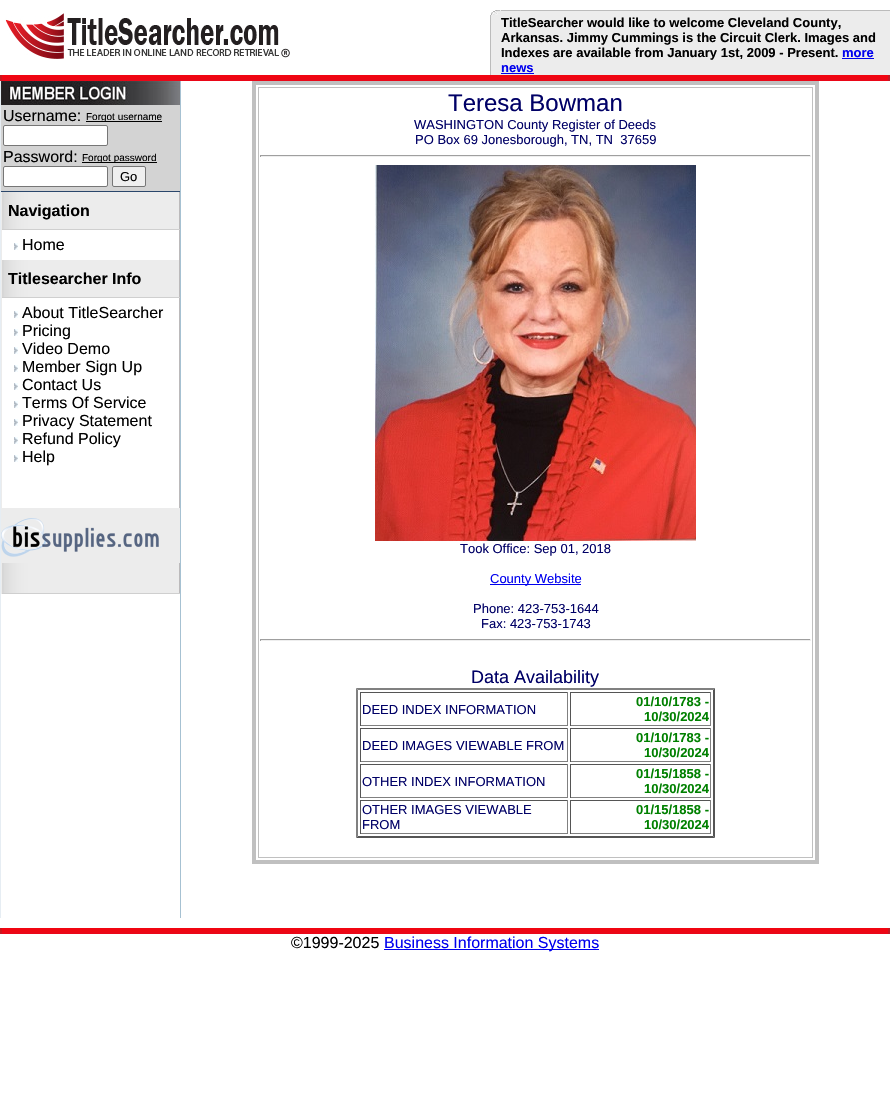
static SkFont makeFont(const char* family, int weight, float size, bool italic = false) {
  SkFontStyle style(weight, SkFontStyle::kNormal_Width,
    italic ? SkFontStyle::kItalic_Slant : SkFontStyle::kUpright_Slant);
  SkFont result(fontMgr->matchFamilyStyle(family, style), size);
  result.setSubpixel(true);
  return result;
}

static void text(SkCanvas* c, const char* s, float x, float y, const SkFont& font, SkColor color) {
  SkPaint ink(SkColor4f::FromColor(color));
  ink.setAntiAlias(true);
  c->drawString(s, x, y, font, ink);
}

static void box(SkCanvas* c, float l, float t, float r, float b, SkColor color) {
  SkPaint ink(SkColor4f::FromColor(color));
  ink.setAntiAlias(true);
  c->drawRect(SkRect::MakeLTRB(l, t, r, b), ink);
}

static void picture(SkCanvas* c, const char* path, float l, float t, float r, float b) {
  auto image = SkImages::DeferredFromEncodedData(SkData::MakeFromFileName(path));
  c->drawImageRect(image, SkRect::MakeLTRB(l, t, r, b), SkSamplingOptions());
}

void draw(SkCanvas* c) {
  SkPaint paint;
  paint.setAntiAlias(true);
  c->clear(0xffffffff);
  picture(c, "img_01.png", 5, 13, 290, 59);
  box(c, 491, 10, 890, 75, 0xffececec);
  picture(c, "img_02.png", 490, 10, 500, 15);
  box(c, 501, 10, 890, 11, 0xffbbbbbb);
  box(c, 490, 15, 491, 75, 0xffbbbbbb);
  SkFont face1 = makeFont("Liberation Sans", 700, 13);
  text(c, "TitleSearcher would like to welcome Cleveland County,", 501, 27, face1, 0xff000000);
  text(c, "Arkansas. Jimmy Cummings is the Circuit Clerk. Images and", 501, 42, face1, 0xff000000);
  text(c, "Indexes are available from January 1st, 2009 - Present.", 501, 57, face1, 0xff000000);
  text(c, "more", 842, 57, face1, 0xff0000ee);
  box(c, 842, 58, 874, 59, 0xff0000ee);
  text(c, "news", 501, 72, face1, 0xff0000ee);
  box(c, 501, 73, 534, 74, 0xff0000ee);
  picture(c, "img_03.png", 2, 75, 356, 81);
  picture(c, "img_04.png", 0, 75, 2, 81);
  picture(c, "img_05.png", 356, 75, 534, 81);
  picture(c, "img_03.png", 534, 75, 888, 81);
  picture(c, "img_06.png", 888, 75, 890, 81);
  box(c, 180, 81, 181, 918, 0xffa6c1d2);
  box(c, 0, 81, 1, 918, 0xffe6edf3);
  picture(c, "img_07.png", 1, 81, 180, 105);
  box(c, 1, 105, 180, 191, 0xffd3d3d3);
  box(c, 1, 191, 180, 192, 0xff2a466b);
  SkFont face2 = makeFont("Liberation Sans", 400, 16);
  text(c, "Username:", 3, 121, face2, 0xff000000);
  box(c, 86, 121, 162, 122, 0xff000000);
  SkFont face3 = makeFont("Liberation Sans", 400, 10);
  text(c, "Forgot username", 86, 120, face3, 0xff000000);
  paint.setColor(0xffffffff);
  c->drawRoundRect(SkRect::MakeLTRB(3.5f, 125.5f, 107.5f, 145.5f), 1.5f, 1.5f, paint);
  paint.setStyle(SkPaint::kStroke_Style);
  paint.setStrokeWidth(1);
  paint.setColor(0xff767676);
  c->drawRoundRect(SkRect::MakeLTRB(3.5f, 125.5f, 107.5f, 145.5f), 1.5f, 1.5f, paint);
  text(c, "Password:", 3, 162, face2, 0xff000000);
  box(c, 82, 162, 157, 163, 0xff000000);
  text(c, "Forgot password", 82, 161, face3, 0xff000000);
  paint.setStyle(SkPaint::kFill_Style);
  paint.setColor(0xffffffff);
  c->drawRoundRect(SkRect::MakeLTRB(3.5f, 166.5f, 107.5f, 186.5f), 1.5f, 1.5f, paint);
  paint.setStyle(SkPaint::kStroke_Style);
  paint.setColor(0xff767676);
  c->drawRoundRect(SkRect::MakeLTRB(3.5f, 166.5f, 107.5f, 186.5f), 1.5f, 1.5f, paint);
  paint.setStyle(SkPaint::kFill_Style);
  paint.setColor(0xffefefef);
  c->drawRoundRect(SkRect::MakeLTRB(112.5f, 166.5f, 145.5f, 186.5f), 1.5f, 1.5f, paint);
  paint.setStyle(SkPaint::kStroke_Style);
  paint.setColor(0xff767676);
  c->drawRoundRect(SkRect::MakeLTRB(112.5f, 166.5f, 145.5f, 186.5f), 1.5f, 1.5f, paint);
  SkFont face4 = makeFont("Liberation Sans", 400, 13);
  text(c, "Go", 120, 181, face4, 0xff000000);
  picture(c, "img_08.png", 2, 192, 179, 229);
  box(c, 179, 192, 180, 508, 0xffbcbabb);
  box(c, 1, 229, 180, 230, 0xffcfcfcf);
  box(c, 1, 192, 2, 260, 0xffececec);
  SkFont face5 = makeFont("Liberation Sans", 700, 16);
  text(c, "Navigation", 8, 216, face5, 0xff000000);
  picture(c, "img_09.png", 14, 243, 18, 250);
  text(c, "Home", 22, 250, face2, 0xff000000);
  picture(c, "img_08.png", 2, 260, 179, 297);
  box(c, 1, 297, 180, 298, 0xffcfcfcf);
  box(c, 1, 260, 2, 508, 0xffececec);
  text(c, "Titlesearcher Info", 8, 284, face5, 0xff000000);
  picture(c, "img_09.png", 14, 311, 18, 318);
  text(c, "About TitleSearcher", 22, 318, face2, 0xff000000);
  picture(c, "img_09.png", 14, 329, 18, 336);
  text(c, "Pricing", 22, 336, face2, 0xff000000);
  picture(c, "img_09.png", 14, 347, 18, 354);
  text(c, "Video Demo", 22, 354, face2, 0xff000000);
  picture(c, "img_09.png", 14, 365, 18, 372);
  text(c, "Member Sign Up", 22, 372, face2, 0xff000000);
  picture(c, "img_09.png", 14, 383, 18, 390);
  text(c, "Contact Us", 22, 390, face2, 0xff000000);
  picture(c, "img_09.png", 14, 401, 18, 408);
  text(c, "Terms Of Service", 22, 408, face2, 0xff000000);
  picture(c, "img_09.png", 14, 419, 18, 426);
  text(c, "Privacy Statement", 22, 426, face2, 0xff000000);
  picture(c, "img_09.png", 14, 437, 18, 444);
  text(c, "Refund Policy", 22, 444, face2, 0xff000000);
  picture(c, "img_09.png", 14, 455, 18, 462);
  text(c, "Help", 22, 462, face2, 0xff000000);
  box(c, 1, 508, 180, 563, 0xffececec);
  picture(c, "img_10.png", 1, 518, 159, 557);
  picture(c, "img_11.png", 2, 563, 179, 593);
  box(c, 179, 563, 180, 594, 0xffbcbabb);
  box(c, 1, 593, 180, 594, 0xffcfcfcf);
  box(c, 1, 563, 2, 594, 0xffececec);
  paint.setStrokeWidth(4);
  paint.setColor(0xffc0c0c0);
  c->drawRect(SkRect::MakeLTRB(254, 83, 817, 862), paint);
  paint.setStrokeWidth(1);
  c->drawRect(SkRect::MakeLTRB(258.5f, 87.5f, 812.5f, 857.5f), paint);
  SkFont face6 = makeFont("Liberation Sans", 400, 24);
  text(c, "Teresa Bowman", 448, 111, face6, 0xff000066);
  text(c, "WASHINGTON County Register of Deeds", 414, 129, face4, 0xff000066);
  text(c, "PO Box 69 Jonesborough, TN, TN  37659", 415, 144, face4, 0xff000066);
  box(c, 260, 155, 811, 156, 0xff9f9f9f);
  box(c, 810, 155, 811, 157, 0xffeeeeee);
  box(c, 260, 156, 811, 157, 0xffeeeeee);
  box(c, 260, 155, 261, 157, 0xff9f9f9f);
  picture(c, "img_12.png", 375, 165, 696, 541);
  text(c, "Took Office: Sep 01, 2018", 460, 553, face4, 0xff000066);
  box(c, 490, 584, 581, 585, 0xff0000ee);
  text(c, "County Website", 490, 583, face4, 0xff0000ee);
  text(c, "Phone: 423-753-1644", 473, 613, face4, 0xff000066);
  text(c, "Fax: 423-753-1743", 481, 628, face4, 0xff000066);
  box(c, 260, 639, 811, 640, 0xff9f9f9f);
  box(c, 810, 639, 811, 641, 0xffeeeeee);
  box(c, 260, 640, 811, 641, 0xffeeeeee);
  box(c, 260, 639, 261, 641, 0xff9f9f9f);
  SkFont face7 = makeFont("Liberation Sans", 400, 18);
  text(c, "Data Availability", 471, 683, face7, 0xff000066);
  paint.setStyle(SkPaint::kFill_Style);
  paint.setColor(0xff808080);
  c->drawPath(SkPathBuilder().moveTo(356, 688).lineTo(715, 688).lineTo(713, 690).lineTo(358, 690).close().detach(), paint);
  paint.setColor(0xff555555);
  c->drawPath(SkPathBuilder().moveTo(715, 688).lineTo(715, 838).lineTo(713, 836).lineTo(713, 690).close().detach(), paint);
  c->drawPath(SkPathBuilder().moveTo(715, 838).lineTo(356, 838).lineTo(358, 836).lineTo(713, 836).close().detach(), paint);
  paint.setColor(0xff808080);
  c->drawPath(SkPathBuilder().moveTo(356, 838).lineTo(356, 688).lineTo(358, 690).lineTo(358, 836).close().detach(), paint);
  box(c, 360, 692, 568, 693, 0xff555555);
  box(c, 567, 692, 568, 726, 0xff808080);
  box(c, 360, 725, 568, 726, 0xff808080);
  box(c, 360, 692, 361, 726, 0xff555555);
  text(c, "DEED INDEX INFORMATION", 362, 714, face4, 0xff000066);
  box(c, 570, 692, 711, 693, 0xff555555);
  box(c, 710, 692, 711, 726, 0xff808080);
  box(c, 570, 725, 711, 726, 0xff808080);
  box(c, 570, 692, 571, 726, 0xff555555);
  text(c, "01/10/1783 -", 636, 706, face1, 0xff008000);
  text(c, "10/30/2024", 644, 721, face1, 0xff008000);
  box(c, 360, 728, 568, 729, 0xff555555);
  box(c, 567, 728, 568, 762, 0xff808080);
  box(c, 360, 761, 568, 762, 0xff808080);
  box(c, 360, 728, 361, 762, 0xff555555);
  text(c, "DEED IMAGES VIEWABLE FROM", 362, 750, face4, 0xff000066);
  box(c, 570, 728, 711, 729, 0xff555555);
  box(c, 710, 728, 711, 762, 0xff808080);
  box(c, 570, 761, 711, 762, 0xff808080);
  box(c, 570, 728, 571, 762, 0xff555555);
  text(c, "01/10/1783 -", 636, 742, face1, 0xff008000);
  text(c, "10/30/2024", 644, 757, face1, 0xff008000);
  box(c, 360, 764, 568, 765, 0xff555555);
  box(c, 567, 764, 568, 798, 0xff808080);
  box(c, 360, 797, 568, 798, 0xff808080);
  box(c, 360, 764, 361, 798, 0xff555555);
  text(c, "OTHER INDEX INFORMATION", 362, 786, face4, 0xff000066);
  box(c, 570, 764, 711, 765, 0xff555555);
  box(c, 710, 764, 711, 798, 0xff808080);
  box(c, 570, 797, 711, 798, 0xff808080);
  box(c, 570, 764, 571, 798, 0xff555555);
  text(c, "01/15/1858 -", 636, 778, face1, 0xff008000);
  text(c, "10/30/2024", 644, 793, face1, 0xff008000);
  box(c, 360, 800, 568, 801, 0xff555555);
  box(c, 567, 800, 568, 834, 0xff808080);
  box(c, 360, 833, 568, 834, 0xff808080);
  box(c, 360, 800, 361, 834, 0xff555555);
  text(c, "OTHER IMAGES VIEWABLE", 362, 814, face4, 0xff000066);
  text(c, "FROM", 362, 829, face4, 0xff000066);
  box(c, 570, 800, 711, 801, 0xff555555);
  box(c, 710, 800, 711, 834, 0xff808080);
  box(c, 570, 833, 711, 834, 0xff808080);
  box(c, 570, 800, 571, 834, 0xff555555);
  text(c, "01/15/1858 -", 636, 814, face1, 0xff008000);
  text(c, "10/30/2024", 644, 829, face1, 0xff008000);
  picture(c, "img_03.png", 2, 928, 356, 934);
  picture(c, "img_04.png", 0, 928, 2, 934);
  picture(c, "img_05.png", 356, 928, 534, 934);
  picture(c, "img_03.png", 534, 928, 888, 934);
  picture(c, "img_06.png", 888, 928, 890, 934);
  text(c, "©1999-2025", 291, 948, face2, 0xff000000);
  box(c, 384, 949, 599, 950, 0xff0000ee);
  text(c, "Business Information Systems", 384, 948, face2, 0xff0000ee);
}
